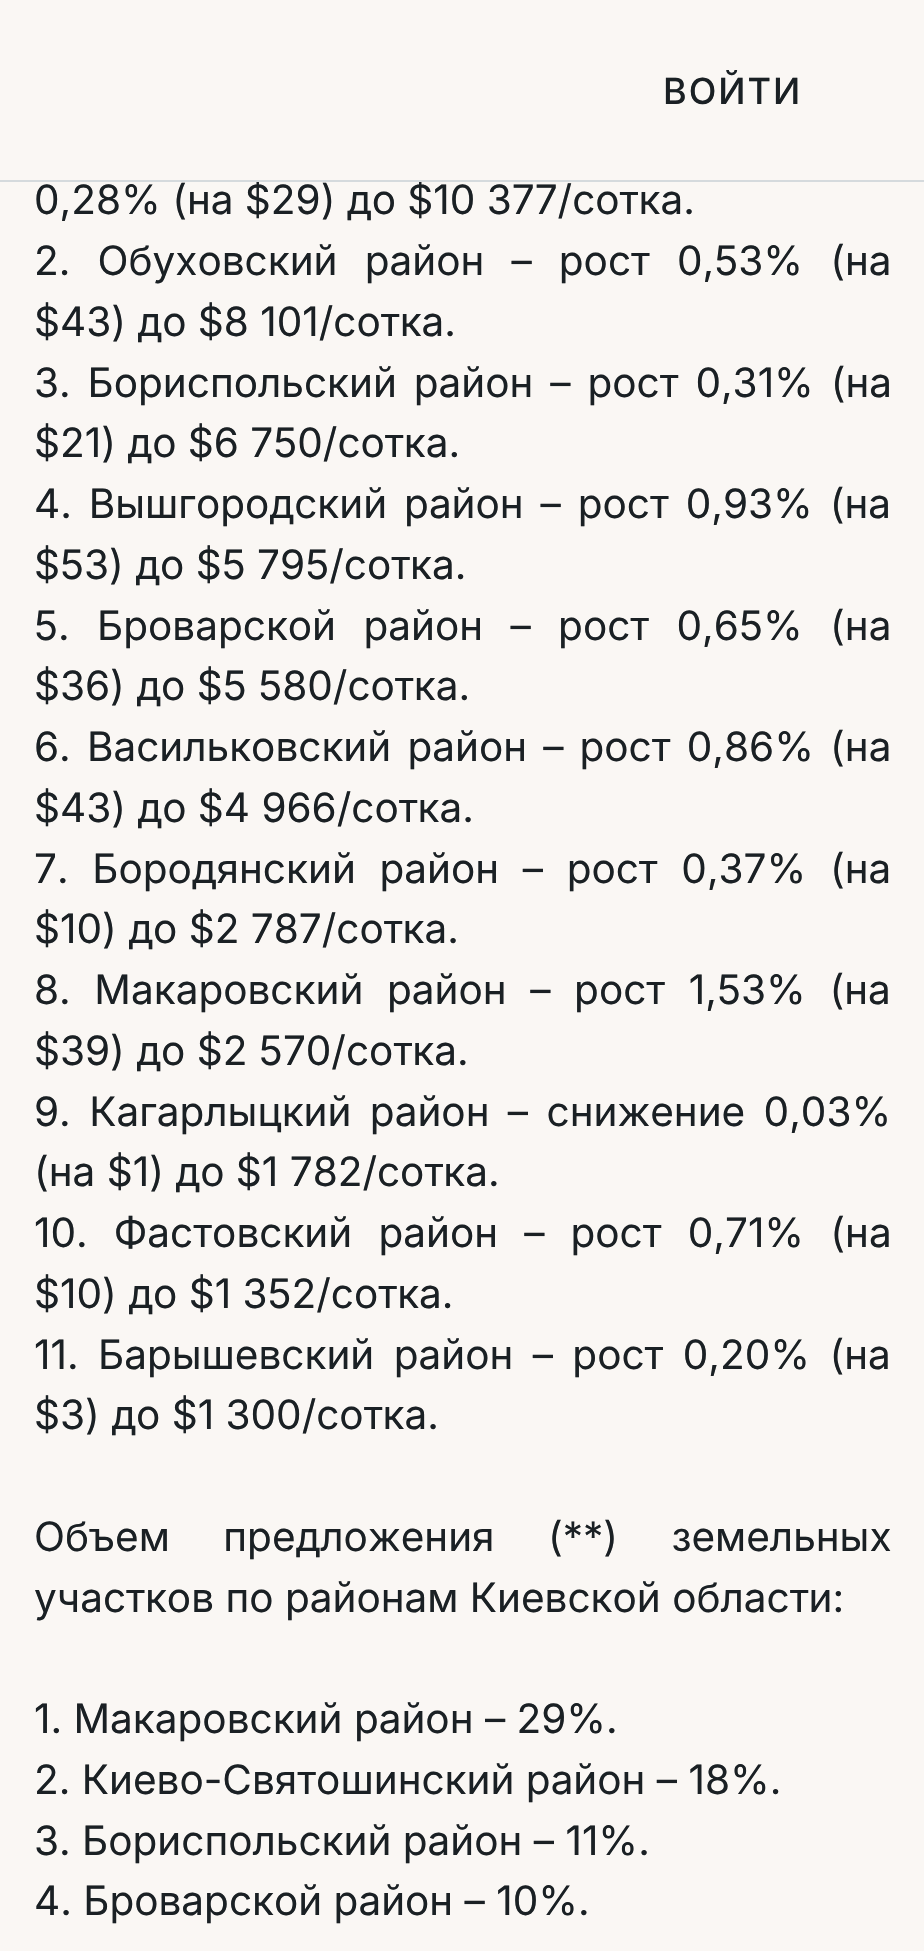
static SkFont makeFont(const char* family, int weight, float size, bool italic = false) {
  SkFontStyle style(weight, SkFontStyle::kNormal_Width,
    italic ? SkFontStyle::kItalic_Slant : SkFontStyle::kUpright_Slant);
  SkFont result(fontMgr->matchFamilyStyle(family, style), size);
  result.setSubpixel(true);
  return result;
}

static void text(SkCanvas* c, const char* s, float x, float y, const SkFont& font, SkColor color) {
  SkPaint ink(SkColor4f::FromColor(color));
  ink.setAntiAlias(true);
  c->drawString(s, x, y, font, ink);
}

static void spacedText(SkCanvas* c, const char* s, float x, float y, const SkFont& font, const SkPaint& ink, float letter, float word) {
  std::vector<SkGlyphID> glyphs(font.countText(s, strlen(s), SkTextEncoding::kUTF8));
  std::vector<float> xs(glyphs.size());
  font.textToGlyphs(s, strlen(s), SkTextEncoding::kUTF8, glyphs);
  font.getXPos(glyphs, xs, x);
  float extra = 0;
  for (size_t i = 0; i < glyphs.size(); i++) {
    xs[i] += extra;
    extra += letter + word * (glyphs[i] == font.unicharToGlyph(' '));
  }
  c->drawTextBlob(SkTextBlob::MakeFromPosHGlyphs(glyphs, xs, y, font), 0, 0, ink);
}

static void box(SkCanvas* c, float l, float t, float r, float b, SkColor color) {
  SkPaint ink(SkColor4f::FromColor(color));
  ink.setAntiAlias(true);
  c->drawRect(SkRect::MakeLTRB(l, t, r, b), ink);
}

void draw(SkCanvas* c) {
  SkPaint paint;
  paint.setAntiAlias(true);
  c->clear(0xfffaf7f4);
  SkFont face1 = makeFont("Inter", 400, 40.5f);
  text(c, "0,28% (на $29) до $10 377/сотка.", 34, 214, face1, 0xff1a2024);
  box(c, 0, 180, 924, 182, 0xffd5dadd);
  SkFont face2 = makeFont("Inter", 500, 36);
  paint.setColor(0xff1a2024);
  spacedText(c, "ВОЙТИ", 663, 104, face2, paint, 2, 0);
  spacedText(c, "2. Обуховский район – рост 0,53% (на", 34, 275, face1, paint, 0, 15.75f);
  text(c, "$43) до $8 101/сотка.", 34, 336, face1, 0xff1a2024);
  spacedText(c, "3. Бориспольский район – рост 0,31% (на", 34, 397, face1, paint, 0, 5.5f);
  text(c, "$21) до $6 750/сотка.", 34, 457, face1, 0xff1a2024);
  spacedText(c, "4. Вышгородский район – рост 0,93% (на", 34, 518, face1, paint, 0, 5.5f);
  text(c, "$53) до $5 795/сотка.", 34, 579, face1, 0xff1a2024);
  spacedText(c, "5. Броварской район – рост 0,65% (на", 34, 640, face1, paint, 0, 16);
  text(c, "$36) до $5 580/сотка.", 34, 700, face1, 0xff1a2024);
  spacedText(c, "6. Васильковский район – рост 0,86% (на", 34, 761, face1, paint, 0, 4.75f);
  text(c, "$43) до $4 966/сотка.", 34, 822, face1, 0xff1a2024);
  spacedText(c, "7. Бородянский район – рост 0,37% (на", 34, 883, face1, paint, 0, 12.25f);
  text(c, "$10) до $2 787/сотка.", 34, 943, face1, 0xff1a2024);
  spacedText(c, "8. Макаровский район – рост 1,53% (на", 34, 1004, face1, paint, 0, 12.25f);
  text(c, "$39) до $2 570/сотка.", 34, 1065, face1, 0xff1a2024);
  spacedText(c, "9. Кагарлыцкий район – снижение 0,03%", 34, 1126, face1, paint, 0, 7);
  text(c, "(на $1) до $1 782/сотка.", 34, 1186, face1, 0xff1a2024);
  spacedText(c, "10. Фастовский район – рост 0,71% (на", 34, 1247, face1, paint, 0, 14.75f);
  text(c, "$10) до $1 352/сотка.", 34, 1308, face1, 0xff1a2024);
  spacedText(c, "11. Барышевский район – рост 0,20% (на", 34, 1369, face1, paint, 0, 8);
  text(c, "$3) до $1 300/сотка.", 34, 1429, face1, 0xff1a2024);
  spacedText(c, "Объем предложения (**) земельных", 34, 1551, face1, paint, 0, 42);
  text(c, "участков по районам Киевской области:", 34, 1612, face1, 0xff1a2024);
  text(c, "1. Макаровский район – 29%.", 34, 1733, face1, 0xff1a2024);
  text(c, "2. Киево-Святошинский район – 18%.", 34, 1794, face1, 0xff1a2024);
  text(c, "3. Бориспольский район – 11%.", 34, 1855, face1, 0xff1a2024);
  text(c, "4. Броварской район – 10%.", 34, 1915, face1, 0xff1a2024);
}
